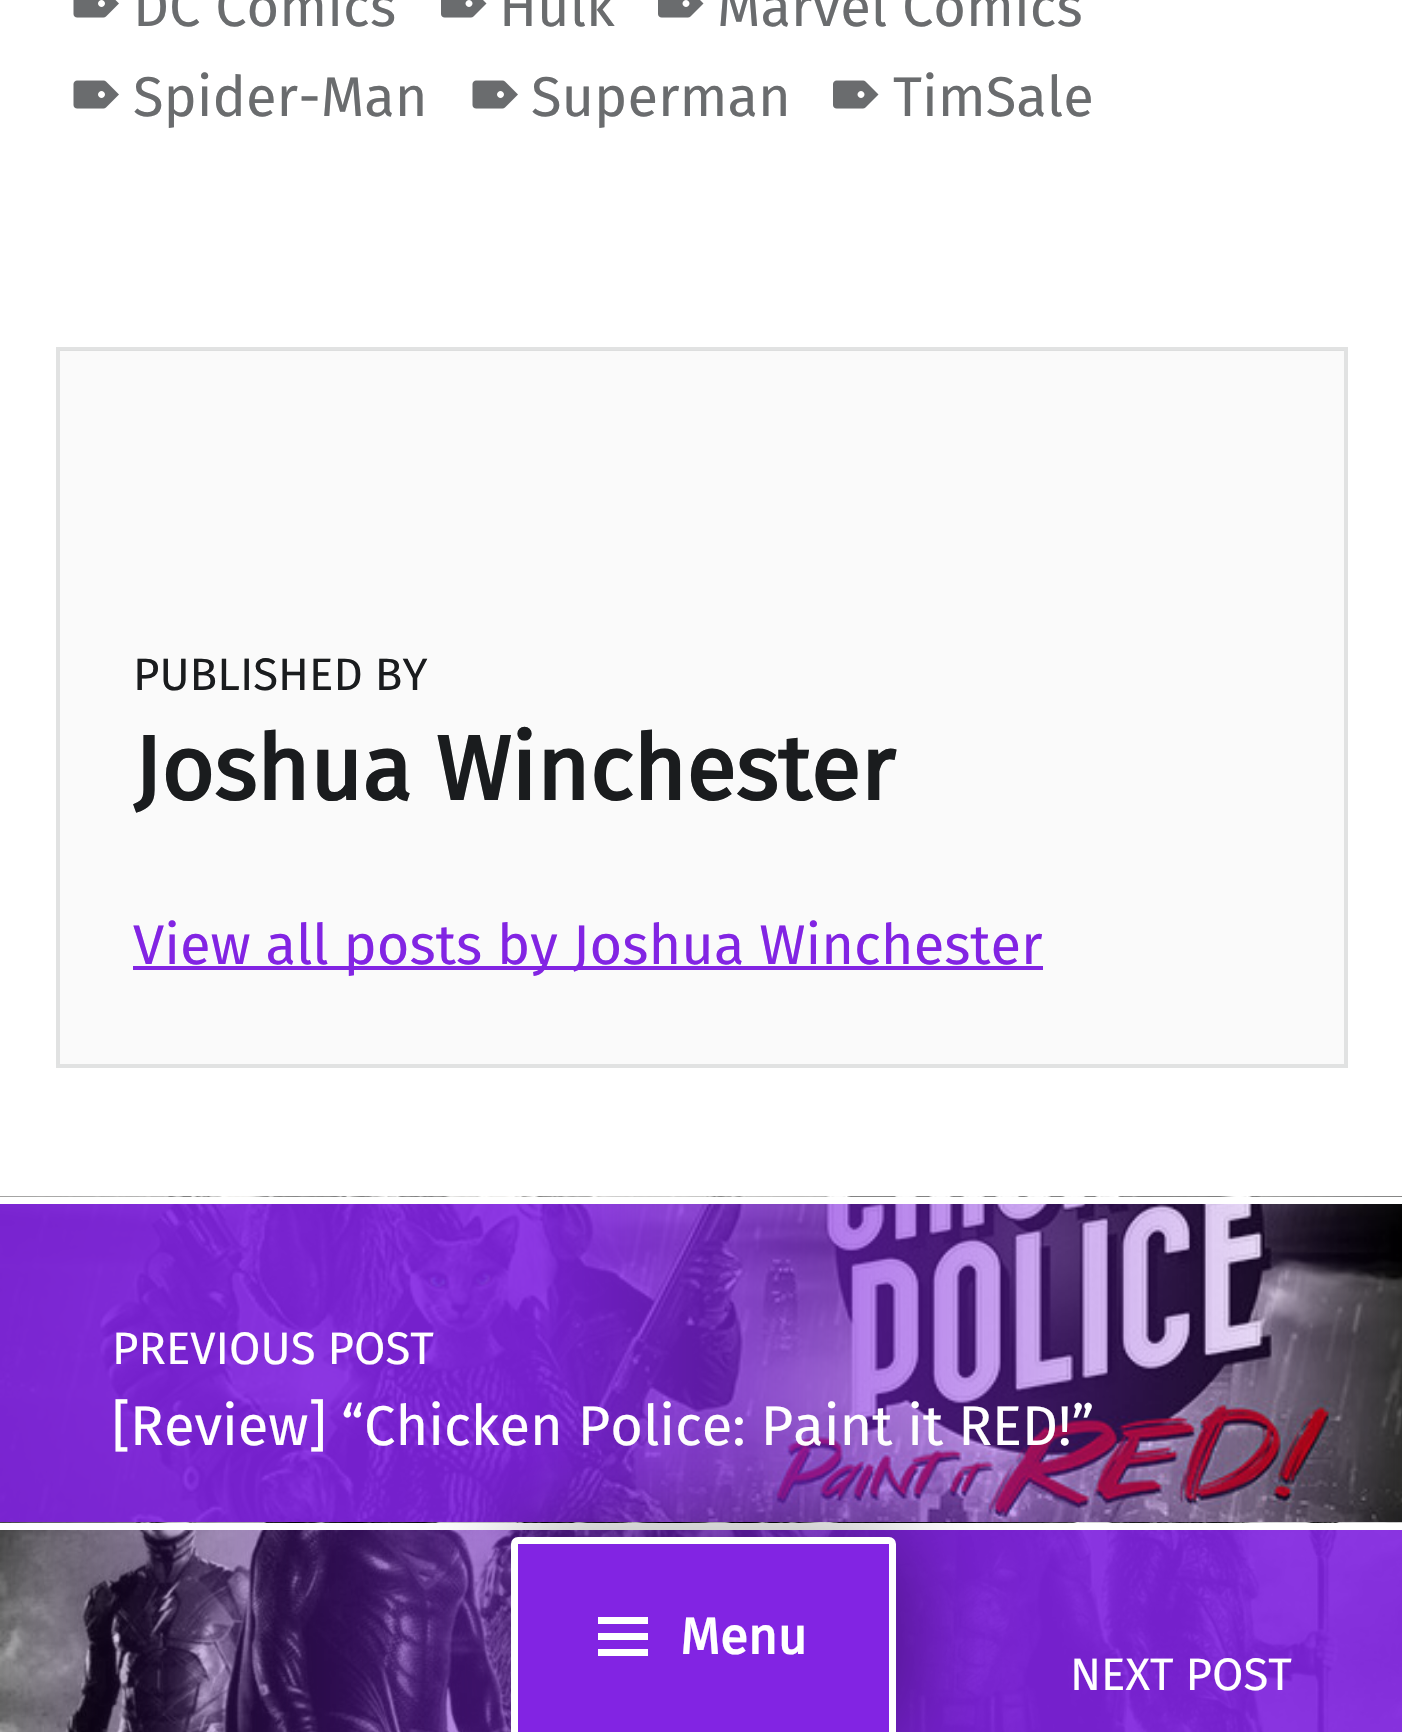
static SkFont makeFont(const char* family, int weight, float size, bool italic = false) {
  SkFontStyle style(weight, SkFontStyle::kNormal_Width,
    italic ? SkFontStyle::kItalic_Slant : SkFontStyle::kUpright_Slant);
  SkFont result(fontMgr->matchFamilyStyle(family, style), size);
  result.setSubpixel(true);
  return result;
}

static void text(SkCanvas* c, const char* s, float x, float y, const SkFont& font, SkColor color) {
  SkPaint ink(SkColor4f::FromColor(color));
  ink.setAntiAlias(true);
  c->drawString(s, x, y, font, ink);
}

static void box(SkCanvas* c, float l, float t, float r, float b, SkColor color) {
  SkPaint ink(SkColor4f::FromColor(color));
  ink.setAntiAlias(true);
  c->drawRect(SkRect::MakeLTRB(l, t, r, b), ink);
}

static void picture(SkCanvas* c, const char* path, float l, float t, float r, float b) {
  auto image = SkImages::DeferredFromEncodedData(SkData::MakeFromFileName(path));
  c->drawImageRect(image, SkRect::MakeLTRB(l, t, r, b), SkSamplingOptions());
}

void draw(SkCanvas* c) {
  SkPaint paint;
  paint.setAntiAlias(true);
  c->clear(0xffffffff);
  picture(c, "img_01.png", 73, 0, 119, 18);
  SkFont face1 = makeFont("Fira Sans", 400, 56);
  text(c, "DC Comics", 133, 26, face1, 0xff6a6c6e);
  picture(c, "img_02.png", 441, 0, 487, 18);
  text(c, "Hulk", 499, 26, face1, 0xff6a6c6e);
  picture(c, "img_02.png", 658, 0, 704, 18);
  text(c, "Marvel Comics", 717, 26, face1, 0xff6a6c6e);
  picture(c, "img_03.png", 73, 80, 119, 109);
  text(c, "Spider-Man", 133, 116, face1, 0xff6a6c6e);
  picture(c, "img_03.png", 472, 80, 518, 109);
  text(c, "Superman", 531, 116, face1, 0xff6a6c6e);
  picture(c, "img_04.png", 833, 80, 879, 109);
  text(c, "TimSale", 893, 116, face1, 0xff6a6c6e);
  paint.setStyle(SkPaint::kStroke_Style);
  paint.setStrokeWidth(4);
  paint.setColor(0xffe1e2e2);
  c->drawRect(SkRect::MakeLTRB(58, 349, 1346, 1066), paint);
  box(c, 60, 350, 1344, 1064, 0x086a6c6e);
  SkFont face2 = makeFont("Fira Sans", 400, 45.5f);
  text(c, "PUBLISHED BY", 133, 690, face2, 0xff1a1c1e);
  SkFont face3 = makeFont("Fira Sans", 700, 90.75f);
  text(c, "Joshua Winchester", 133, 800, face3, 0xff1a1c1e);
  box(c, 133, 966, 1043, 970, 0xff8224e3);
  text(c, "View all posts by Joshua Winchester", 133, 964, face1, 0xff8224e3);
  picture(c, "img_05.png", 0, 1196, 1402, 1522);
  box(c, 0, 1197, 1402, 1204, 0xffffffff);
  text(c, "PREVIOUS POST", 112, 1364, face2, 0xffffffff);
  text(c, "[Review] “Chicken Police: Paint it RED!”", 112, 1445, face1, 0xffffffff);
  picture(c, "img_06.png", 0, 1522, 1402, 1732);
  box(c, 0, 1523, 1402, 1530, 0xffffffff);
  text(c, "NEXT POST", 1070, 1690, face2, 0xffffffff);
  paint.setStyle(SkPaint::kFill_Style);
  paint.setColor(0x66000000);
  paint.setMaskFilter(SkMaskFilter::MakeBlur(kNormal_SkBlurStyle, 50.5f));
  c->drawRoundRect(SkRect::MakeLTRB(511, 1537, 896, 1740), 7, 7, paint);
  paint.setMaskFilter(nullptr);
  paint.setColor(0xff8224e3);
  c->drawRoundRect(SkRect::MakeLTRB(514.5f, 1540.5f, 892.5f, 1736.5f), 3.5f, 3.5f, paint);
  paint.setStyle(SkPaint::kStroke_Style);
  paint.setStrokeWidth(7);
  paint.setColor(0xffffffff);
  c->drawRoundRect(SkRect::MakeLTRB(514.5f, 1540.5f, 892.5f, 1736.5f), 3.5f, 3.5f, paint);
  paint.setStyle(SkPaint::kFill_Style);
  c->drawPath(SkPathBuilder().moveTo(598, 1656).lineTo(598, 1649).lineTo(648, 1649).lineTo(648, 1656).close().moveTo(598, 1617).lineTo(648, 1617).lineTo(648, 1624).lineTo(598, 1624).close().moveTo(598, 1640).lineTo(598, 1633).lineTo(648, 1633).lineTo(648, 1640).close().detach(), paint);
  SkFont face4 = makeFont("Fira Sans", 700, 51);
  text(c, "Menu", 680, 1654, face4, 0xffffffff);
}
